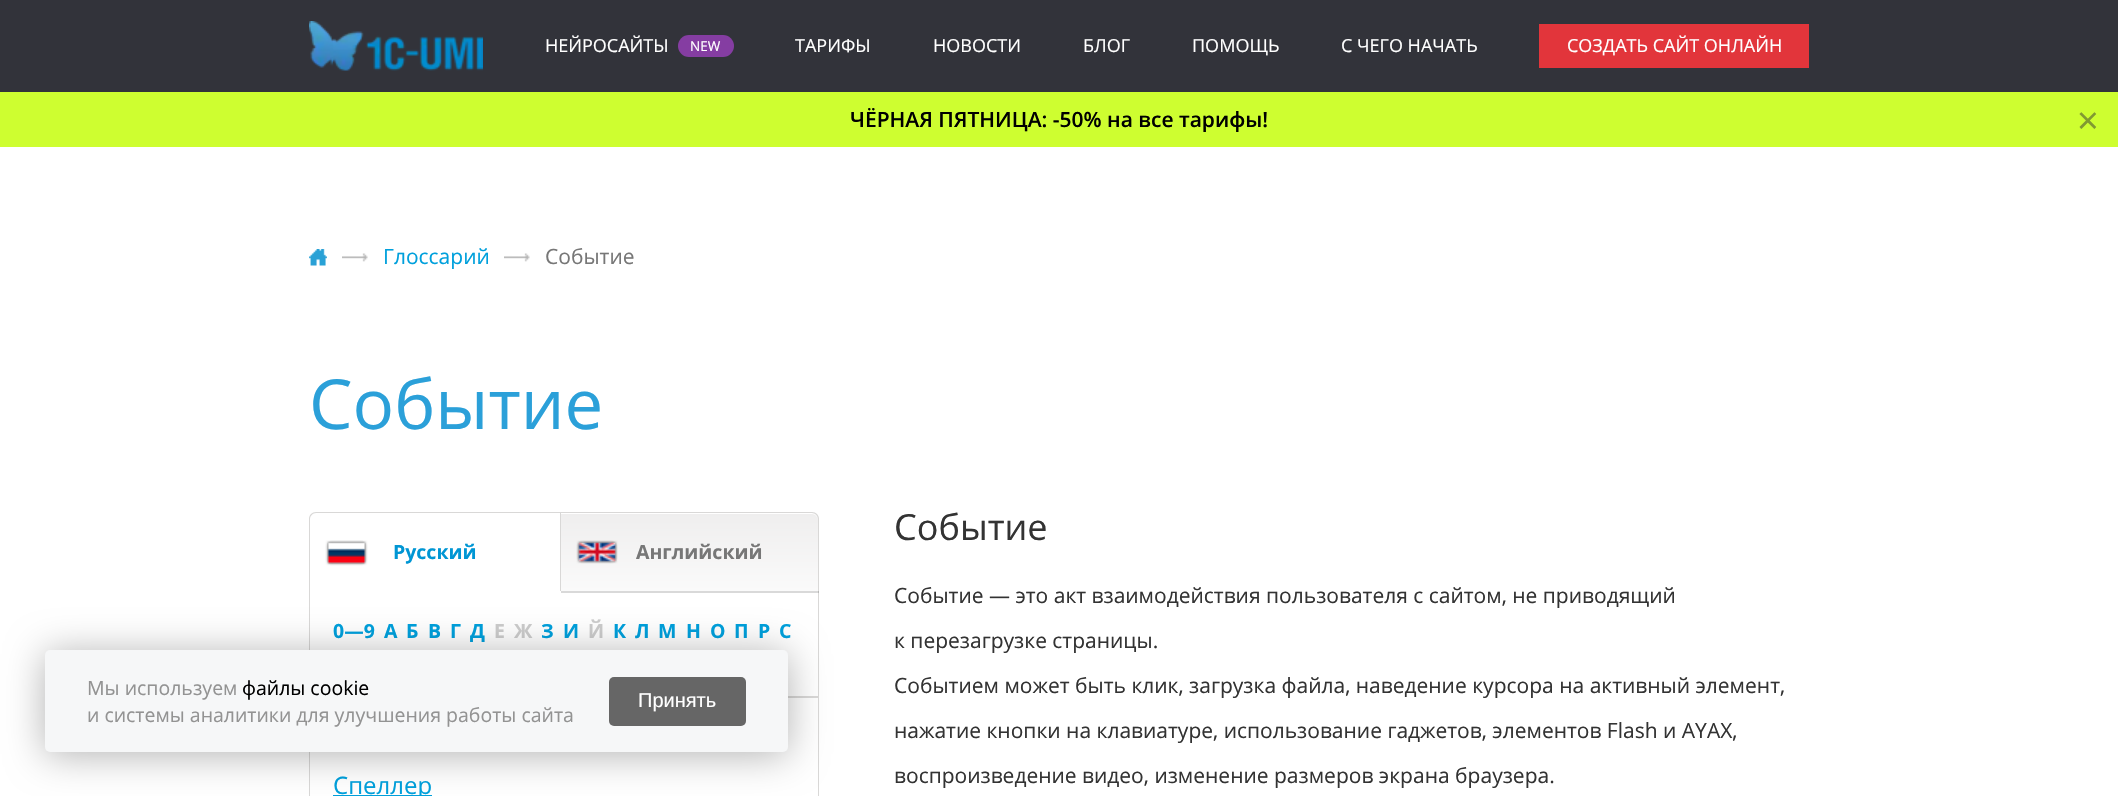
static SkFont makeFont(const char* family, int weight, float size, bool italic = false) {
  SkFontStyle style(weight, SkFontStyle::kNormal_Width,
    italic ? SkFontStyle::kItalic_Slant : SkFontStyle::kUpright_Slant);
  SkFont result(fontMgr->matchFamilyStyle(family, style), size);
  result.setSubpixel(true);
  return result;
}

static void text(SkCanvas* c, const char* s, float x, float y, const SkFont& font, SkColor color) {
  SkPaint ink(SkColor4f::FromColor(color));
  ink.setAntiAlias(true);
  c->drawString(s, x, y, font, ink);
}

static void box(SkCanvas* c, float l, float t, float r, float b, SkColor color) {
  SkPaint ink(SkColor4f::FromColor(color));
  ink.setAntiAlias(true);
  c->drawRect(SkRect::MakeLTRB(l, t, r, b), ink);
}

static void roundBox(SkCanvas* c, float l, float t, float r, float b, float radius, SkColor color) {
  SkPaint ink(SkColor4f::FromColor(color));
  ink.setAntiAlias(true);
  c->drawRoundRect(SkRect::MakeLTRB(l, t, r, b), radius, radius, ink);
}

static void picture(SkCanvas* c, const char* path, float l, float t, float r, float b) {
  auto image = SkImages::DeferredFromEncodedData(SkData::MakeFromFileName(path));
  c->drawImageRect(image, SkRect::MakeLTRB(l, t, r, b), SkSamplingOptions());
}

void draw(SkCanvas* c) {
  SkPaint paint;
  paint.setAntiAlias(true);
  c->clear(0xffffffff);
  box(c, 0, 0, 2118, 92, 0xff32333a);
  picture(c, "img_01.png", 309, 21, 483, 71);
  SkFont face1 = makeFont("Open Sans", 400, 18);
  text(c, "НЕЙРОСАЙТЫ", 545, 52, face1, 0xffffffff);
  roundBox(c, 678, 35, 734, 57, 11, 0xff853da2);
  SkFont face2 = makeFont("Open Sans", 400, 13.5f);
  text(c, "NEW", 690, 51, face2, 0xffffffff);
  text(c, "ТАРИФЫ", 795, 52, face1, 0xffffffff);
  text(c, "НОВОСТИ", 933, 52, face1, 0xffffffff);
  text(c, "БЛОГ", 1083, 52, face1, 0xffffffff);
  text(c, "ПОМОЩЬ", 1192, 52, face1, 0xffffffff);
  text(c, "C ЧЕГО НАЧАТЬ", 1341, 52, face1, 0xffffffff);
  box(c, 1539, 24, 1809, 68, 0xffe2353b);
  text(c, "СОЗДАТЬ САЙТ ОНЛАЙН", 1567, 52, face1, 0xffffffff);
  box(c, 0, 92, 2118, 147, 0xffcefe30);
  SkFont face3 = makeFont("Open Sans", 600, 21);
  text(c, "ЧЁРНАЯ ПЯТНИЦА: -50% на все тарифы!", 850, 127, face3, 0xff000000);
  SkFont face4 = makeFont("Open Sans", 400, 38);
  text(c, "×", 2077, 134, face4, 0xff819932);
  picture(c, "img_02.png", 309, 249, 327, 266);
  picture(c, "img_03.png", 342, 253, 368, 262);
  SkFont face5 = makeFont("Open Sans", 400, 21);
  text(c, "Глоссарий", 383, 264, face5, 0xff00a0dc);
  picture(c, "img_04.png", 504, 253, 530, 262);
  text(c, "Событие", 545, 264, face5, 0xff777777);
  SkFont face6 = makeFont("Open Sans", 400, 69);
  text(c, "Событие", 309, 429, face6, 0xff2ba0d9);
  paint.setColor(0xffd9d8d7);
  c->drawPath(SkPathBuilder(SkPathFillType::kEvenOdd).moveTo(316, 512).lineTo(561, 512).lineTo(561, 591).lineTo(309, 591).lineTo(309, 519).cubicTo(309, 515, 312, 512, 316, 512).close().moveTo(316, 513).lineTo(560, 513).lineTo(560, 591).lineTo(310, 591).lineTo(310, 519).cubicTo(310, 516, 313, 513, 316, 513).close().detach(), paint);
  picture(c, "img_05.png", 325, 540, 368, 566);
  SkFont face7 = makeFont("Open Sans", 700, 19.5f);
  text(c, "Русский", 393, 559, face7, 0xff0096d4);
  c->drawPath(SkPathBuilder(SkPathFillType::kEvenOdd).moveTo(309, 591).lineTo(819, 591).lineTo(819, 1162).cubicTo(819, 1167, 816, 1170, 812, 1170).lineTo(316, 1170).cubicTo(312, 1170, 309, 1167, 309, 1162).close().moveTo(310, 591).lineTo(818, 591).lineTo(818, 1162).cubicTo(818, 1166, 815, 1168, 812, 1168).lineTo(316, 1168).cubicTo(313, 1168, 310, 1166, 310, 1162).close().detach(), paint);
  box(c, 561, 591, 819, 593, 0x26000000);
  c->save();
  c->clipPath(SkPathBuilder().moveTo(561, 512).lineTo(811, 512).cubicTo(815.5f, 512, 819, 515.5f, 819, 520).lineTo(819, 591).lineTo(561, 591).close().detach(), true);
  {
    const SkColor colors[] = {0xffefeeee, 0xfffafafa};
    const float stops[] = {0, 1};
    const SkPoint ends[] = {{689, 513}, {689, 591}};
    paint.setShader(SkGradientShader::MakeLinear(ends, colors, stops, 2, SkTileMode::kClamp));
    paint.setAlpha(255);
  }
  c->drawRect(SkRect::MakeLTRB(561, 513, 819, 591), paint);
  c->restore();
  paint.setShader(nullptr);
  paint.setColor(0xffffffff);
  c->drawPath(SkPathBuilder().moveTo(561, 514).lineTo(812, 514).cubicTo(815, 514, 818, 517, 818, 520).cubicTo(818, 516, 816, 513, 812, 513).lineTo(561, 513).close().detach(), paint);
  paint.setColor(0xffd9d8d7);
  c->drawPath(SkPathBuilder(SkPathFillType::kEvenOdd).moveTo(561, 512).lineTo(812, 512).cubicTo(816, 512, 819, 515, 819, 519).lineTo(819, 591).lineTo(561, 591).close().moveTo(561, 513).lineTo(812, 513).cubicTo(815, 513, 818, 516, 818, 519).lineTo(818, 591).lineTo(561, 591).close().detach(), paint);
  picture(c, "img_06.png", 576, 540, 618, 564);
  text(c, "Английский", 636, 559, face7, 0xff777777);
  box(c, 788, 696, 818, 698, 0xffd9d8d7);
  text(c, "0—9", 333, 638, face7, 0xff00a0dc);
  text(c, "А", 384, 638, face7, 0xff00a0dc);
  text(c, "Б", 406, 638, face7, 0xff00a0dc);
  text(c, "В", 428, 638, face7, 0xff00a0dc);
  text(c, "Г", 450, 638, face7, 0xff00a0dc);
  text(c, "Д", 470, 638, face7, 0xff00a0dc);
  text(c, "Е", 494, 638, face7, 0xffcccccc);
  text(c, "Ж", 514, 638, face7, 0xffcccccc);
  text(c, "З", 541, 638, face7, 0xff00a0dc);
  text(c, "И", 563, 638, face7, 0xff00a0dc);
  text(c, "Й", 588, 638, face7, 0xffcccccc);
  text(c, "К", 613, 638, face7, 0xff00a0dc);
  text(c, "Л", 635, 638, face7, 0xff00a0dc);
  text(c, "М", 658, 638, face7, 0xff00a0dc);
  text(c, "Н", 686, 638, face7, 0xff00a0dc);
  text(c, "О", 710, 638, face7, 0xff00a0dc);
  text(c, "П", 734, 638, face7, 0xff00a0dc);
  text(c, "Р", 758, 638, face7, 0xff00a0dc);
  text(c, "С", 779, 638, face7, 0xff00a0dc);
  box(c, 333, 795, 432, 796, 0xff00a0dc);
  SkFont face8 = makeFont("Open Sans", 400, 24);
  text(c, "Спеллер", 333, 794, face8, 0xff00a0dc);
  SkFont face9 = makeFont("Open Sans", 400, 36);
  text(c, "Событие", 894, 540, face9, 0xff333333);
  text(c, "Событие — это акт взаимодействия пользователя с сайтом, не приводящий", 894, 603, face5, 0xff333333);
  text(c, "к перезагрузке страницы.", 894, 648, face5, 0xff333333);
  text(c, "Событием может быть клик, загрузка файла, наведение курсора на активный элемент,", 894, 693, face5, 0xff333333);
  text(c, "нажатие кнопки на клавиатуре, использование гаджетов, элементов Flash и AYAX,", 894, 738, face5, 0xff333333);
  text(c, "воспроизведение видео, изменение размеров экрана браузера.", 894, 783, face5, 0xff333333);
  paint.setColor(0x4d000000);
  paint.setMaskFilter(SkMaskFilter::MakeBlur(kNormal_SkBlurStyle, 19));
  c->drawRoundRect(SkRect::MakeLTRB(45, 653, 788, 755), 5, 5, paint);
  paint.setMaskFilter(nullptr);
  roundBox(c, 45, 650, 788, 752, 5, 0xfff6f7f8);
  SkFont face10 = makeFont("Open Sans", 400, 19.5f);
  text(c, "Мы используем", 87, 695, face10, 0xff939393);
  text(c, "файлы cookie", 242, 695, face10, 0xff000000);
  text(c, "и системы аналитики для улучшения работы сайта", 87, 722, face10, 0xff939393);
  roundBox(c, 609, 677, 746, 726, 5, 0xff666666);
  SkFont face11 = makeFont("Liberation Sans", 400, 20);
  text(c, "Принять", 638, 707, face11, 0xffffffff);
}
